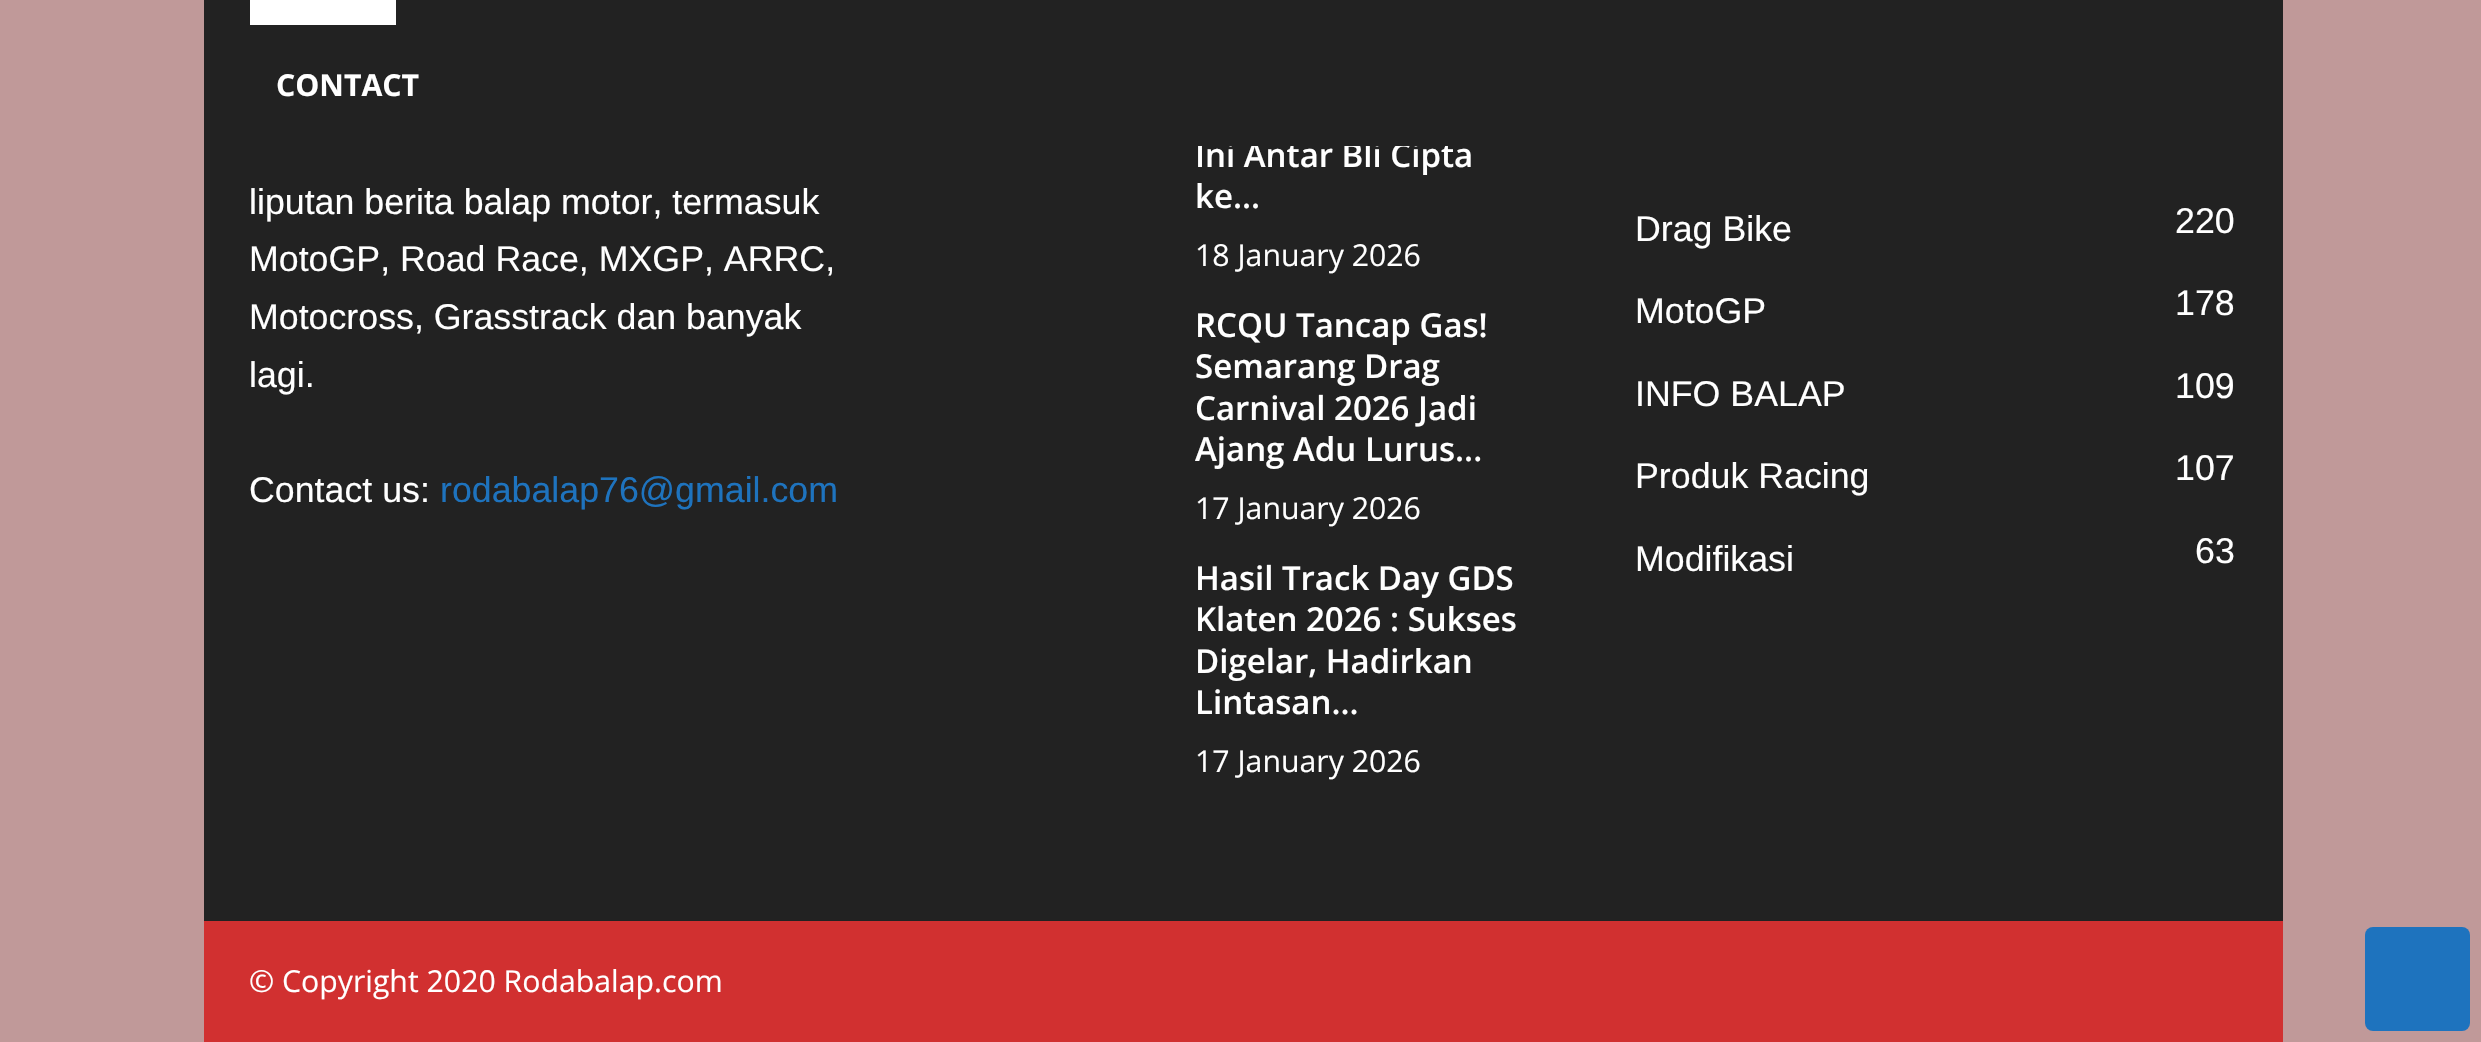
static SkFont makeFont(const char* family, int weight, float size, bool italic = false) {
  SkFontStyle style(weight, SkFontStyle::kNormal_Width,
    italic ? SkFontStyle::kItalic_Slant : SkFontStyle::kUpright_Slant);
  SkFont result(fontMgr->matchFamilyStyle(family, style), size);
  result.setSubpixel(true);
  return result;
}

static void text(SkCanvas* c, const char* s, float x, float y, const SkFont& font, SkColor color) {
  SkPaint ink(SkColor4f::FromColor(color));
  ink.setAntiAlias(true);
  c->drawString(s, x, y, font, ink);
}

static void box(SkCanvas* c, float l, float t, float r, float b, SkColor color) {
  SkPaint ink(SkColor4f::FromColor(color));
  ink.setAntiAlias(true);
  c->drawRect(SkRect::MakeLTRB(l, t, r, b), ink);
}

static void roundBox(SkCanvas* c, float l, float t, float r, float b, float radius, SkColor color) {
  SkPaint ink(SkColor4f::FromColor(color));
  ink.setAntiAlias(true);
  c->drawRoundRect(SkRect::MakeLTRB(l, t, r, b), radius, radius, ink);
}

void draw(SkCanvas* c) {
  SkPaint paint;
  paint.setAntiAlias(true);
  c->clear(0xffc09999);
  box(c, 204, 146, 2283, 921, 0xff222222);
  SkFont face1 = makeFont("Open Sans", 600, 33);
  text(c, "Ini Antar Bli Cipta", 1195, 167, face1, 0xffffffff);
  box(c, 204, 0, 2283, 146, 0xff222222);
  box(c, 250, 0, 396, 25, 0xffffffff);
  SkFont face2 = makeFont("Open Sans", 700, 30.25f);
  text(c, "CONTACT", 276, 96, face2, 0xffffffff);
  SkFont face3 = makeFont("Liberation Sans", 400, 35.75f);
  text(c, "liputan berita balap motor, termasuk", 249, 214, face3, 0xffffffff);
  text(c, "MotoGP, Road Race, MXGP, ARRC,", 249, 271, face3, 0xffffffff);
  text(c, "Motocross, Grasstrack dan banyak", 249, 329, face3, 0xffffffff);
  text(c, "lagi.", 249, 387, face3, 0xffffffff);
  text(c, "Contact us:", 249, 502, face3, 0xffffffff);
  text(c, "rodabalap76@gmail.com", 440, 502, face3, 0xff1e73be);
  text(c, "ke...", 1195, 208, face1, 0xffffffff);
  SkFont face4 = makeFont("Open Sans", 400, 30.25f);
  text(c, "18 January 2026", 1195, 266, face4, 0xffffffff);
  text(c, "RCQU Tancap Gas!", 1195, 337, face1, 0xffffffff);
  text(c, "Semarang Drag", 1195, 378, face1, 0xffffffff);
  text(c, "Carnival 2026 Jadi", 1195, 420, face1, 0xffffffff);
  text(c, "Ajang Adu Lurus...", 1195, 461, face1, 0xffffffff);
  text(c, "17 January 2026", 1195, 519, face4, 0xffffffff);
  text(c, "Hasil Track Day GDS", 1195, 590, face1, 0xffffffff);
  text(c, "Klaten 2026 : Sukses", 1195, 631, face1, 0xffffffff);
  text(c, "Digelar, Hadirkan", 1195, 673, face1, 0xffffffff);
  text(c, "Lintasan...", 1195, 714, face1, 0xffffffff);
  text(c, "17 January 2026", 1195, 772, face4, 0xffffffff);
  text(c, "Drag Bike", 1635, 241, face3, 0xffffffff);
  text(c, "220", 2175, 233, face3, 0xffffffff);
  text(c, "MotoGP", 1635, 323, face3, 0xffffffff);
  text(c, "178", 2175, 315, face3, 0xffffffff);
  text(c, "INFO BALAP", 1635, 406, face3, 0xffffffff);
  text(c, "109", 2175, 398, face3, 0xffffffff);
  text(c, "Produk Racing", 1635, 488, face3, 0xffffffff);
  text(c, "107", 2175, 480, face3, 0xffffffff);
  text(c, "Modifikasi", 1635, 571, face3, 0xffffffff);
  text(c, "63", 2195, 563, face3, 0xffffffff);
  box(c, 204, 921, 2283, 1042, 0xffd13030);
  text(c, "© Copyright 2020 Rodabalap.com", 249, 992, face4, 0xffffffff);
  roundBox(c, 2365, 927, 2470, 1031, 8, 0xff1e73be);
}
